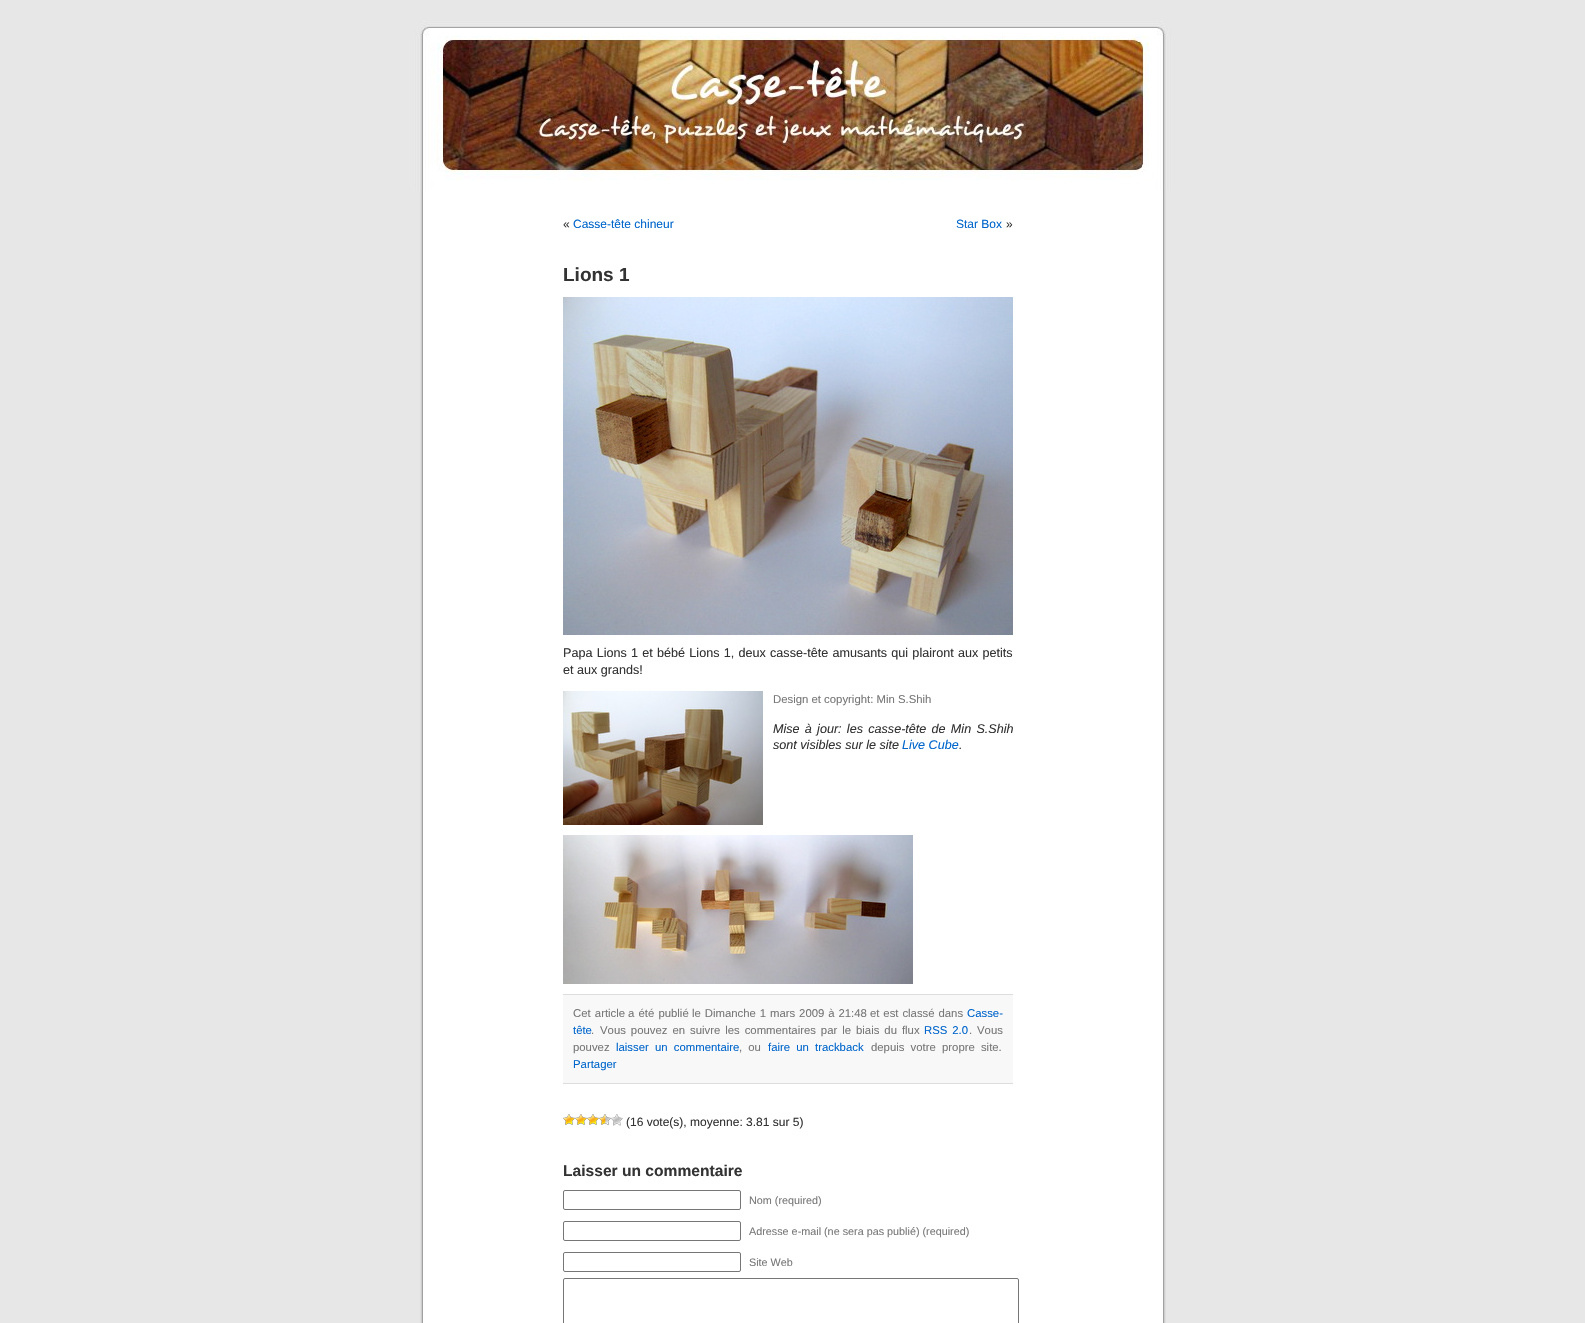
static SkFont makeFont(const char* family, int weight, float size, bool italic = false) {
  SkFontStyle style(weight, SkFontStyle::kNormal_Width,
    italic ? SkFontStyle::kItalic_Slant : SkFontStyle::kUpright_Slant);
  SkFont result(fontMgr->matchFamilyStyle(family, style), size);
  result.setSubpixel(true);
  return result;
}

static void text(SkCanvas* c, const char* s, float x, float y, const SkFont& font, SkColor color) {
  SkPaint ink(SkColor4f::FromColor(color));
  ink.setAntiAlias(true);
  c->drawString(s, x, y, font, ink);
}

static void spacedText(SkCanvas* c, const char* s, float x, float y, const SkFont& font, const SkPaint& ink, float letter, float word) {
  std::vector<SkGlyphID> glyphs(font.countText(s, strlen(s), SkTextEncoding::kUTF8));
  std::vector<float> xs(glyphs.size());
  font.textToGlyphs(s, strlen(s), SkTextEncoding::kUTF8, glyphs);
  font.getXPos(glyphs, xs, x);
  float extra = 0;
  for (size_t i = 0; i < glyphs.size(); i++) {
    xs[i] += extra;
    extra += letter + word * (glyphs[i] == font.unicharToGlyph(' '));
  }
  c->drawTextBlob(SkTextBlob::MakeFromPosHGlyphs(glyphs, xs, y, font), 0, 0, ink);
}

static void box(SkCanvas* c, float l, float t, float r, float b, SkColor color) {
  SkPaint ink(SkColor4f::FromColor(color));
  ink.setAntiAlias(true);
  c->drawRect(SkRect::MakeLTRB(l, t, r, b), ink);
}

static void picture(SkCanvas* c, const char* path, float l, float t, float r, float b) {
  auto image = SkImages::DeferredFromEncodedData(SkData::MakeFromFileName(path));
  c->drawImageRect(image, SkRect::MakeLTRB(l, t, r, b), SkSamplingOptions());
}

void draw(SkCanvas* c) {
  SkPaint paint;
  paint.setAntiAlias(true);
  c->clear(0xffe7e7e7);
  picture(c, "img_01.png", 420, 190, 1166, 1323);
  picture(c, "img_02.png", 414, 20, 1172, 190);
  SkFont face1 = makeFont("Liberation Sans", 400, 12);
  text(c, "«", 563, 228, face1, 0xff333333);
  text(c, "Casse-tête chineur", 573, 228, face1, 0xff0066cc);
  text(c, "Star Box", 956, 228, face1, 0xff0066cc);
  text(c, "»", 1006, 228, face1, 0xff333333);
  SkFont face2 = makeFont("Liberation Sans", 700, 19);
  text(c, "Lions 1", 563, 281, face2, 0xff333333);
  picture(c, "img_03.png", 563, 297, 1013, 635);
  SkFont face3 = makeFont("Liberation Sans", 400, 12.6f);
  paint.setColor(0xff333333);
  spacedText(c, "Papa Lions 1 et bébé Lions 1, deux casse-tête amusants qui plairont aux petits", 563, 657, face3, paint, 0, 0.75f);
  text(c, "et aux grands!", 563, 674, face3, 0xff333333);
  picture(c, "img_04.png", 563, 691, 763, 825);
  SkFont face4 = makeFont("Liberation Sans", 400, 11.35f);
  text(c, "Design et copyright: Min S.Shih", 773, 703, face4, 0xff777777);
  SkFont face5 = makeFont("Liberation Sans", 400, 12.6f, true);
  spacedText(c, "Mise à jour: les casse-tête de Min S.Shih", 773, 733, face5, paint, 0, 1.75f);
  text(c, "sont visibles sur le site", 773, 749, face5, 0xff333333);
  text(c, "Live Cube", 902, 749, face5, 0xff0066cc);
  text(c, ".", 959, 749, face5, 0xff333333);
  picture(c, "img_05.png", 563, 835, 913, 984);
  box(c, 563, 995, 1013, 1083, 0xfff8f8f8);
  box(c, 563, 994, 1013, 995, 0xffdddddd);
  box(c, 563, 1083, 1013, 1084, 0xffdddddd);
  paint.setColor(0xff777777);
  spacedText(c, "Cet article", 573, 1017, face4, paint, 0, 1);
  spacedText(c, "a été publié", 628, 1017, face4, paint, 0, 1);
  spacedText(c, "le Dimanche 1 mars 2009 à 21:48", 692, 1017, face4, paint, 0, 0.75f);
  spacedText(c, "et est classé dans", 870, 1017, face4, paint, 0, 0.75f);
  text(c, "Casse-", 967, 1017, face4, 0xff0066cc);
  text(c, "tête", 573, 1034, face4, 0xff0066cc);
  text(c, ".", 591, 1034, face4, 0xff777777);
  spacedText(c, "Vous pouvez en suivre les commentaires par le biais du flux", 600, 1034, face4, paint, 0, 1.8f);
  paint.setColor(0xff0066cc);
  spacedText(c, "RSS 2.0", 924, 1034, face4, paint, 0, 1.8f);
  text(c, ".", 969, 1034, face4, 0xff777777);
  text(c, "Vous", 977, 1034, face4, 0xff777777);
  text(c, "pouvez", 573, 1051, face4, 0xff777777);
  spacedText(c, "laisser un commentaire", 616, 1051, face4, paint, 0, 3);
  paint.setColor(0xff777777);
  spacedText(c, ", ou", 739, 1051, face4, paint, 0, 3);
  paint.setColor(0xff0066cc);
  spacedText(c, "faire un trackback", 768, 1051, face4, paint, 0, 3);
  paint.setColor(0xff777777);
  spacedText(c, "depuis votre propre site.", 871, 1051, face4, paint, 0, 3);
  text(c, "Partager", 573, 1068, face4, 0xff0066cc);
  picture(c, "img_06.png", 563, 1114, 575, 1125);
  picture(c, "img_06.png", 575, 1114, 587, 1125);
  picture(c, "img_06.png", 587, 1114, 599, 1125);
  picture(c, "img_07.png", 599, 1114, 611, 1125);
  picture(c, "img_08.png", 611, 1114, 623, 1126);
  text(c, "(16 vote(s), moyenne: 3.81 sur 5)", 626, 1126, face1, 0xff333333);
  SkFont face6 = makeFont("Liberation Sans", 700, 15.6f);
  text(c, "Laisser un commentaire", 563, 1176, face6, 0xff333333);
  paint.setStyle(SkPaint::kStroke_Style);
  paint.setStrokeWidth(1);
  paint.setColor(0xff767676);
  c->drawRoundRect(SkRect::MakeLTRB(563.5f, 1190.5f, 740.5f, 1209.5f), 1.5f, 1.5f, paint);
  SkFont face7 = makeFont("Liberation Sans", 400, 10.8f);
  text(c, "Nom (required)", 749, 1204, face7, 0xff777777);
  c->drawRoundRect(SkRect::MakeLTRB(563.5f, 1221.5f, 740.5f, 1240.5f), 1.5f, 1.5f, paint);
  text(c, "Adresse e-mail (ne sera pas publié) (required)", 749, 1235, face7, 0xff777777);
  c->drawRoundRect(SkRect::MakeLTRB(563.5f, 1252.5f, 740.5f, 1271.5f), 1.5f, 1.5f, paint);
  text(c, "Site Web", 749, 1266, face7, 0xff777777);
  c->drawRoundRect(SkRect::MakeLTRB(563.5f, 1278.5f, 1018.5f, 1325.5f), 1.5f, 1.5f, paint);
}
